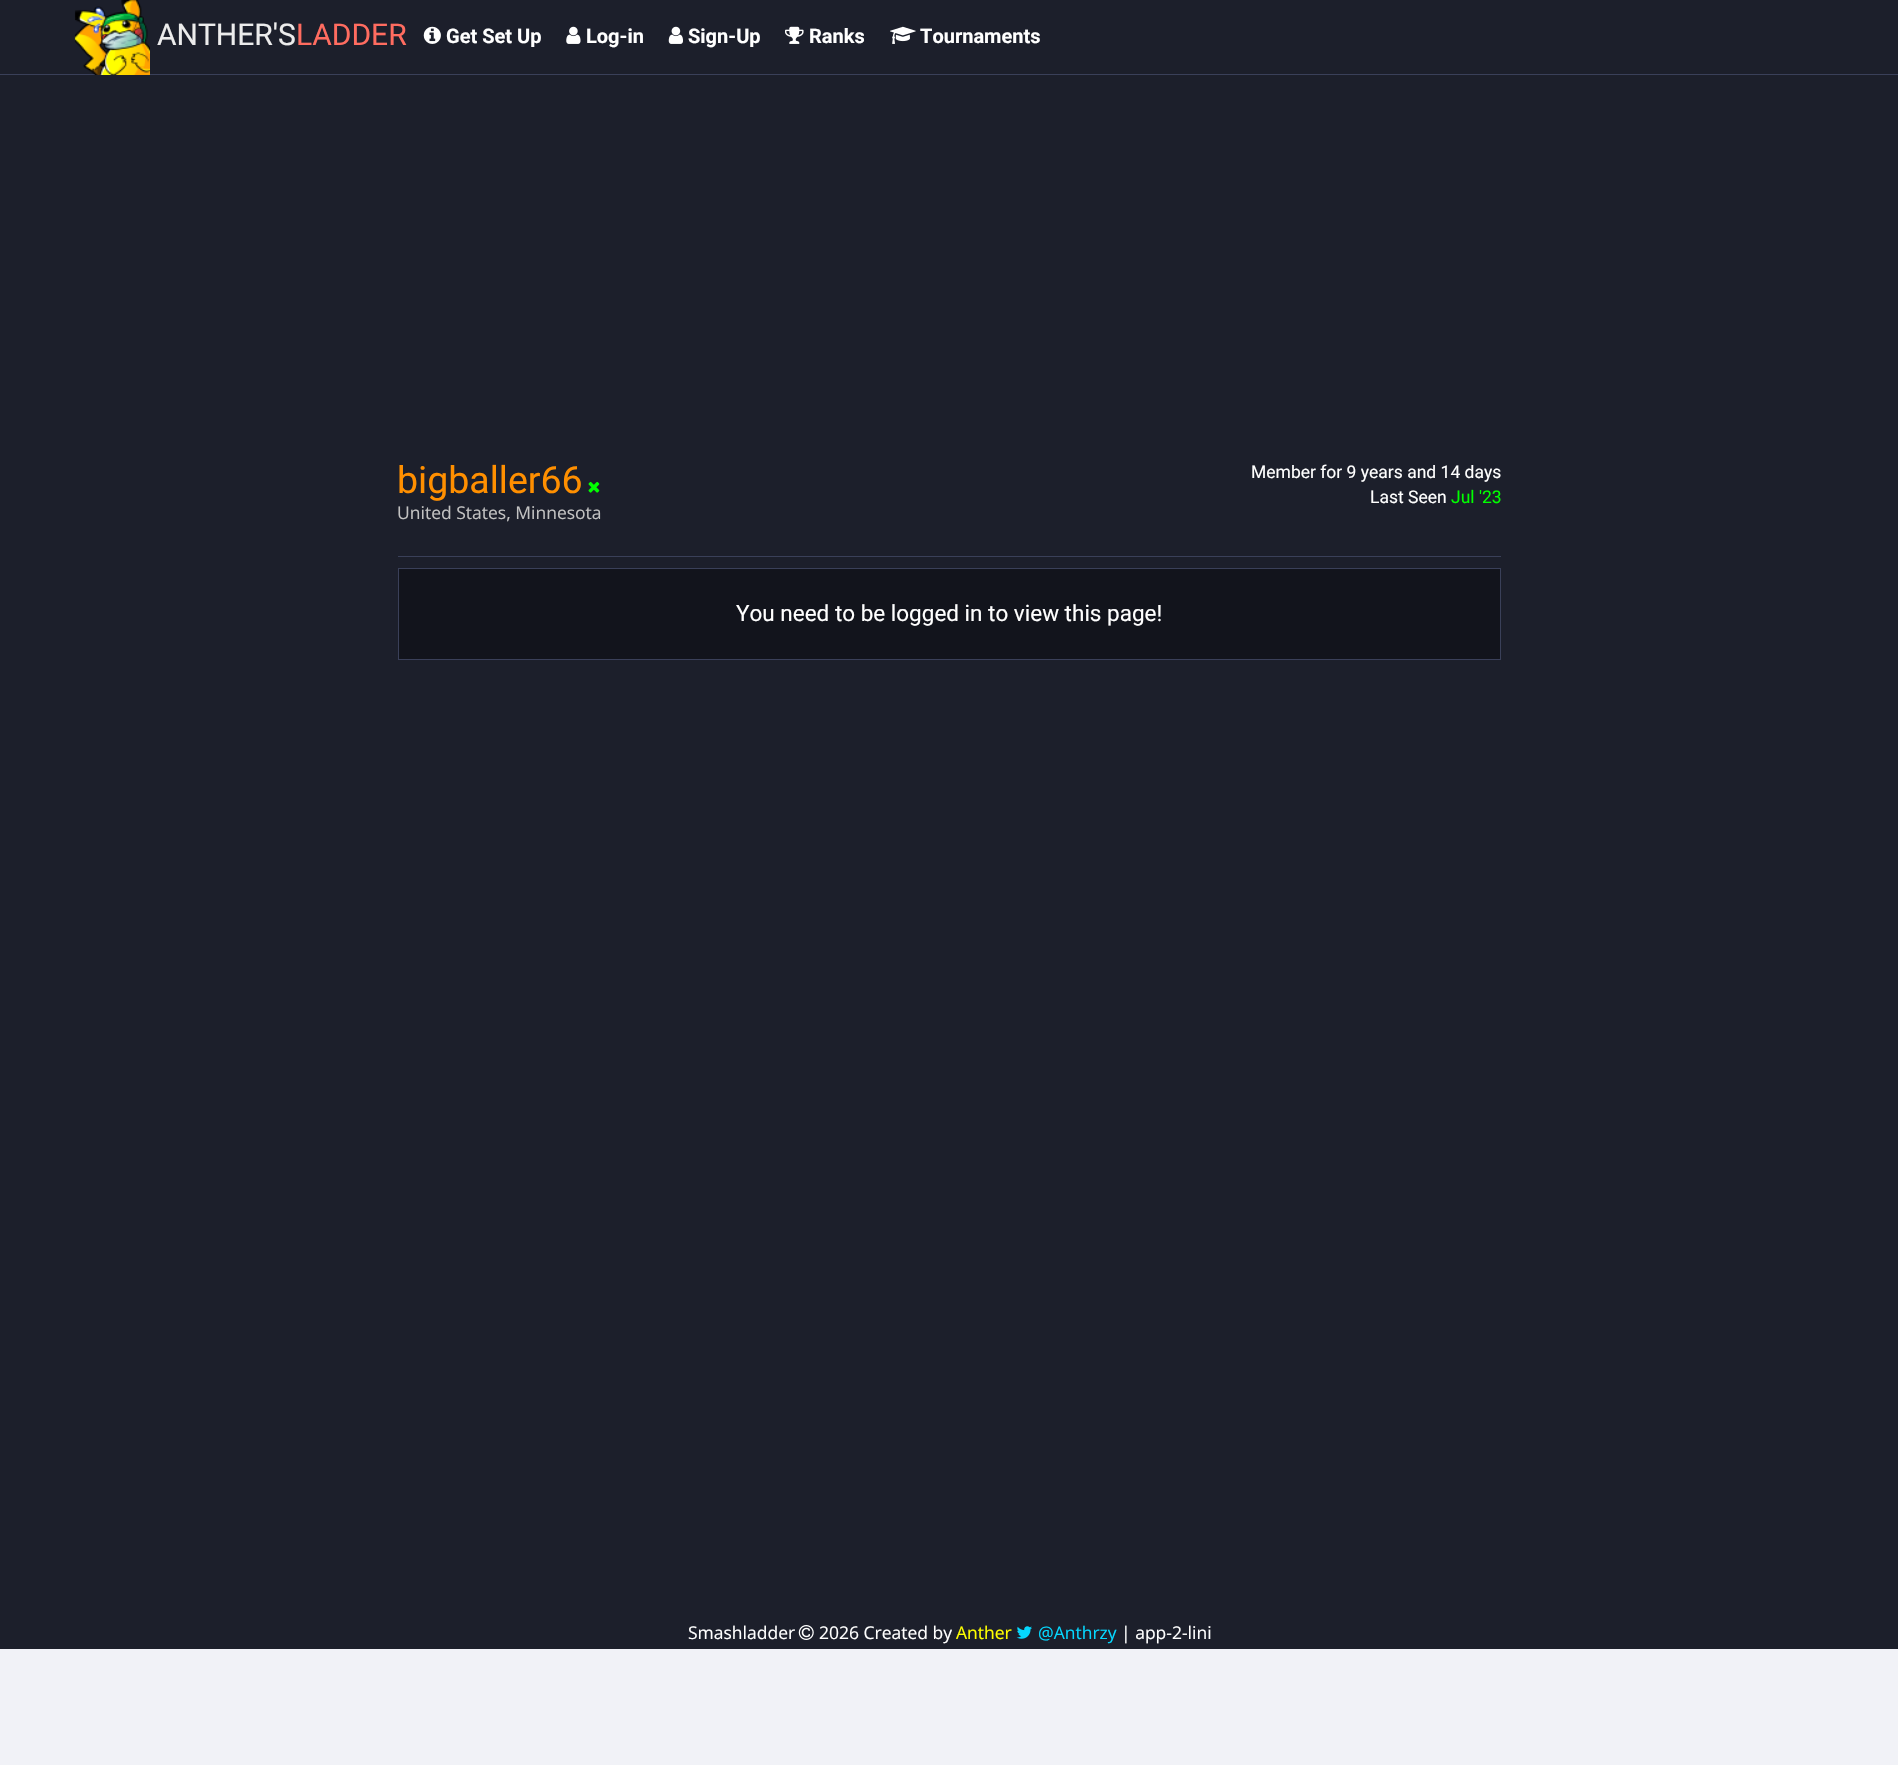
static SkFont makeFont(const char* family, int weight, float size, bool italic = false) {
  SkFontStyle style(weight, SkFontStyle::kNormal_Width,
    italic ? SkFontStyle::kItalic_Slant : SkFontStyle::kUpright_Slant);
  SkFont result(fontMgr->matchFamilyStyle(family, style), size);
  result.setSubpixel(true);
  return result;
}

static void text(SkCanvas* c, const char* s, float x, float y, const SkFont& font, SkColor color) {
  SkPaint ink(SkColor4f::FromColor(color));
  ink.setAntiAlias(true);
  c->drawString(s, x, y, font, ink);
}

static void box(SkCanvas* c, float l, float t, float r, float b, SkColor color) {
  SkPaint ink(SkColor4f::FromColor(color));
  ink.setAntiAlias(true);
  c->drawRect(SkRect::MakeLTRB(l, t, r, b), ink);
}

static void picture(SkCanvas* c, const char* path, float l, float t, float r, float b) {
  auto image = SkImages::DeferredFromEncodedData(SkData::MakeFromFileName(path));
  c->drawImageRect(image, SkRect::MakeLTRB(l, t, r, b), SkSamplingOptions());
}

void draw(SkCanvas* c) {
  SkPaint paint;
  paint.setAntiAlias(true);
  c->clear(0xfff1f2f7);
  box(c, 0, 0, 1898, 74, 0xff1c1f2b);
  box(c, 0, 74, 1898, 75, 0xff3a4059);
  picture(c, "img_01.png", 74, 0, 150, 75);
  SkFont face1 = makeFont("Roboto", 400, 30);
  text(c, "ANTHER'S", 157, 45, face1, 0xffececec);
  text(c, "LADDER", 296, 45, face1, 0xffff6c60);
  picture(c, "img_02.png", 423, 26, 441, 44);
  SkFont face2 = makeFont("Roboto", 700, 20);
  text(c, "Get Set Up", 446, 43, face2, 0xffffffff);
  picture(c, "img_03.png", 566, 26, 581, 44);
  text(c, "Log-in", 586, 43, face2, 0xffffffff);
  picture(c, "img_04.png", 668, 26, 683, 44);
  text(c, "Sign-Up", 688, 43, face2, 0xffffffff);
  picture(c, "img_05.png", 785, 26, 804, 44);
  text(c, "Ranks", 809, 43, face2, 0xffffffff);
  picture(c, "img_06.png", 890, 26, 916, 44);
  text(c, "Tournaments", 920, 43, face2, 0xffffffff);
  box(c, 0, 75, 1898, 1649, 0xff1c1f2b);
  box(c, 398, 556, 1501, 557, 0xff3a4059);
  SkFont face3 = makeFont("Roboto", 400, 37.5f);
  text(c, "bigballer66", 397, 493, face3, 0xffff8f00);
  picture(c, "img_07.png", 588, 481, 600, 493);
  SkFont face4 = makeFont("Open Sans", 400, 17.5f);
  text(c, "United States, Minnesota", 397, 519, face4, 0xffc2c2c2);
  SkFont face5 = makeFont("Roboto", 400, 17.5f);
  text(c, "Member for 9 years and 14 days", 1251, 478, face5, 0xffffffff);
  text(c, "Last Seen", 1370, 503, face5, 0xffffffff);
  text(c, "Jul '23", 1451, 503, face5, 0xff00ff00);
  paint.setColor(0xff12141c);
  c->drawRect(SkRect::MakeLTRB(398.5f, 568.5f, 1500.5f, 659.5f), paint);
  paint.setStyle(SkPaint::kStroke_Style);
  paint.setStrokeWidth(1);
  paint.setColor(0xff3a4059);
  c->drawRect(SkRect::MakeLTRB(398.5f, 568.5f, 1500.5f, 659.5f), paint);
  SkFont face6 = makeFont("Roboto", 400, 22.5f);
  text(c, "You need to be logged in to view this page!", 736, 621, face6, 0xffffffff);
  text(c, "Smashladder", 688, 1639, face4, 0xffffffff);
  picture(c, "img_08.png", 798, 1625, 814, 1640);
  text(c, "2026 Created by", 819, 1639, face4, 0xffffffff);
  text(c, "Anther", 956, 1639, face4, 0xffffff00);
  picture(c, "img_09.png", 1016, 1626, 1032, 1639);
  text(c, "@Anthrzy", 1038, 1639, face4, 0xff05d8ff);
  text(c, "| app-2-lini", 1121, 1639, face4, 0xffffffff);
}
